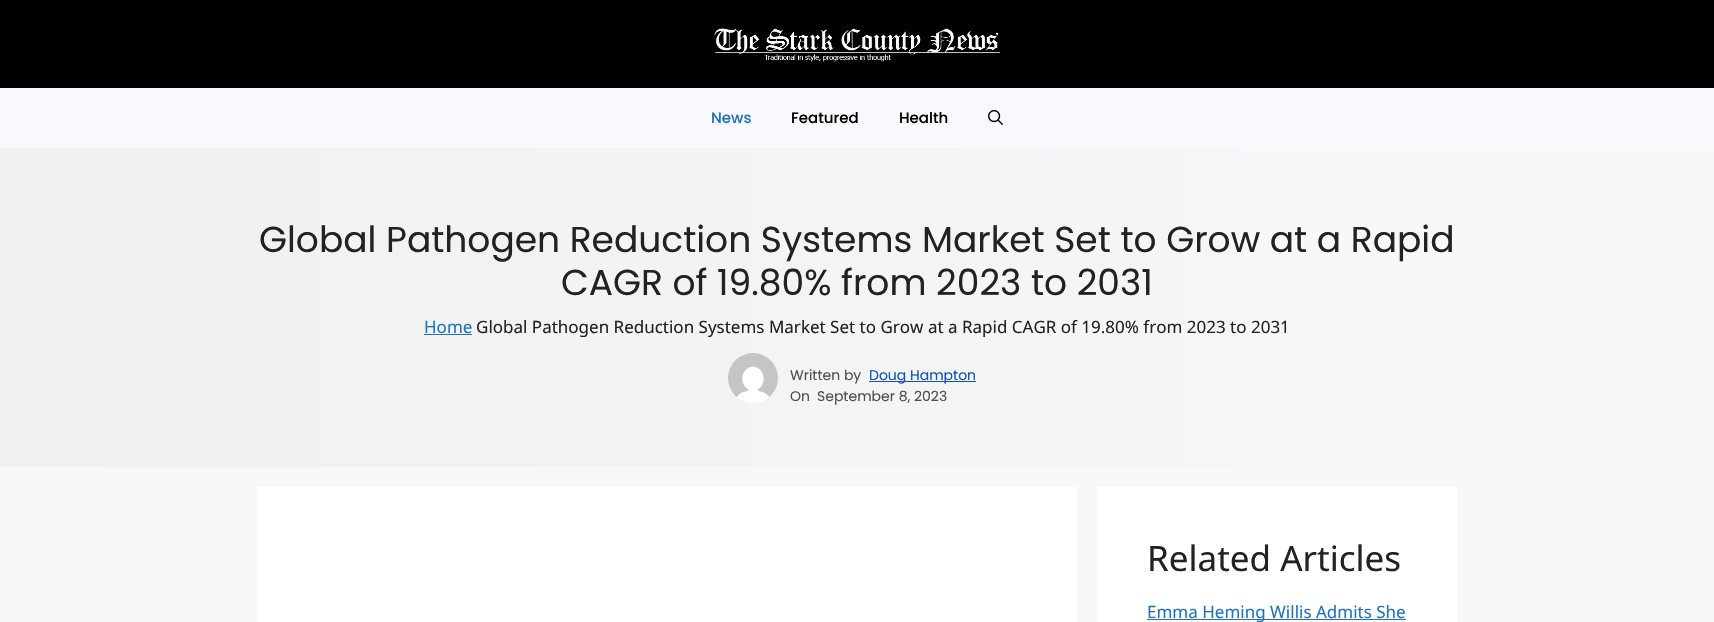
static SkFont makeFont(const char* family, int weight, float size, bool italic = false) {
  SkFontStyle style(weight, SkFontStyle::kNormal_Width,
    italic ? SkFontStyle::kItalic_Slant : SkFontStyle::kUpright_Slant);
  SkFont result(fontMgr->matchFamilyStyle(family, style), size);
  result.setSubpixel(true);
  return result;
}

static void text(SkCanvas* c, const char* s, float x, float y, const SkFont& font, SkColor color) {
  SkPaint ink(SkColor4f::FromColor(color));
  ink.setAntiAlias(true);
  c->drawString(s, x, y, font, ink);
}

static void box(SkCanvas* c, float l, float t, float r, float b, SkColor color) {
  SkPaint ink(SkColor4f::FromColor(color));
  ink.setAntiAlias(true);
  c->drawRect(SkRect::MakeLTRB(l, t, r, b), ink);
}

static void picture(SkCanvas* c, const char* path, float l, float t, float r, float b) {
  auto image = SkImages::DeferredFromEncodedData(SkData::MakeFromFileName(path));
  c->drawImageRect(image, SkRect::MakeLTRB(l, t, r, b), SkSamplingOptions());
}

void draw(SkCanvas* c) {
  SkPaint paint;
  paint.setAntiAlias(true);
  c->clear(0xfff7f8f9);
  box(c, 0, 0, 1714, 88, 0xff000000);
  picture(c, "img_01.png", 714, 28, 1000, 62);
  box(c, 0, 88, 1714, 148, 0xfff9f9fd);
  SkFont face1 = makeFont("Poppins", 500, 15);
  text(c, "News", 711, 123, face1, 0xff1e73be);
  text(c, "Featured", 791, 123, face1, 0xff000000);
  text(c, "Health", 899, 123, face1, 0xff000000);
  picture(c, "img_02.png", 988, 110, 1003, 125);
  {
    const SkColor colors[] = {0xfff0f0f0, 0xfff7f8f9};
    const float stops[] = {0, 1};
    const SkPoint ends[] = {{0, 308}, {1714, 307}};
    paint.setShader(SkGradientShader::MakeLinear(ends, colors, stops, 2, SkTileMode::kClamp));
    paint.setAlpha(255);
  }
  c->drawRect(SkRect::MakeLTRB(0, 148, 1238, 467), paint);
  SkFont face2 = makeFont("Poppins", 400, 36);
  text(c, "Global Pathogen Reduction Systems Market Set to Grow at a Rapid", 259, 252, face2, 0xff222222);
  text(c, "CAGR of 19.80% from 2023 to 2031", 561, 295, face2, 0xff222222);
  SkFont face3 = makeFont("Noto Sans", 400, 17);
  text(c, "Home", 424, 333, face3, 0xff1e73be);
  box(c, 424, 334, 472, 335, 0xff1e73be);
  text(c, "Global Pathogen Reduction Systems Market Set to Grow at a Rapid CAGR of 19.80% from 2023 to 2031", 476, 333, face3, 0xff222222);
  picture(c, "img_03.png", 728, 353, 778, 403);
  SkFont face4 = makeFont("Poppins", 400, 14);
  text(c, "Written by", 790, 380, face4, 0xff4e4e4e);
  box(c, 869, 381, 976, 382, 0xff0f52ba);
  text(c, "Doug Hampton", 869, 380, face4, 0xff0f52ba);
  text(c, "On", 790, 401, face4, 0xff4e4e4e);
  text(c, "September 8, 2023", 817, 401, face4, 0xff4e4e4e);
  box(c, 257, 487, 1077, 622, 0xffffffff);
  box(c, 1097, 487, 1457, 622, 0xffffffff);
  SkFont face5 = makeFont("Noto Sans", 400, 35);
  text(c, "Related Articles", 1147, 571, face5, 0xff222222);
  box(c, 1147, 619, 1406, 620, 0xff1e73be);
  text(c, "Emma Heming Willis Admits She", 1147, 618, face3, 0xff1e73be);
}
